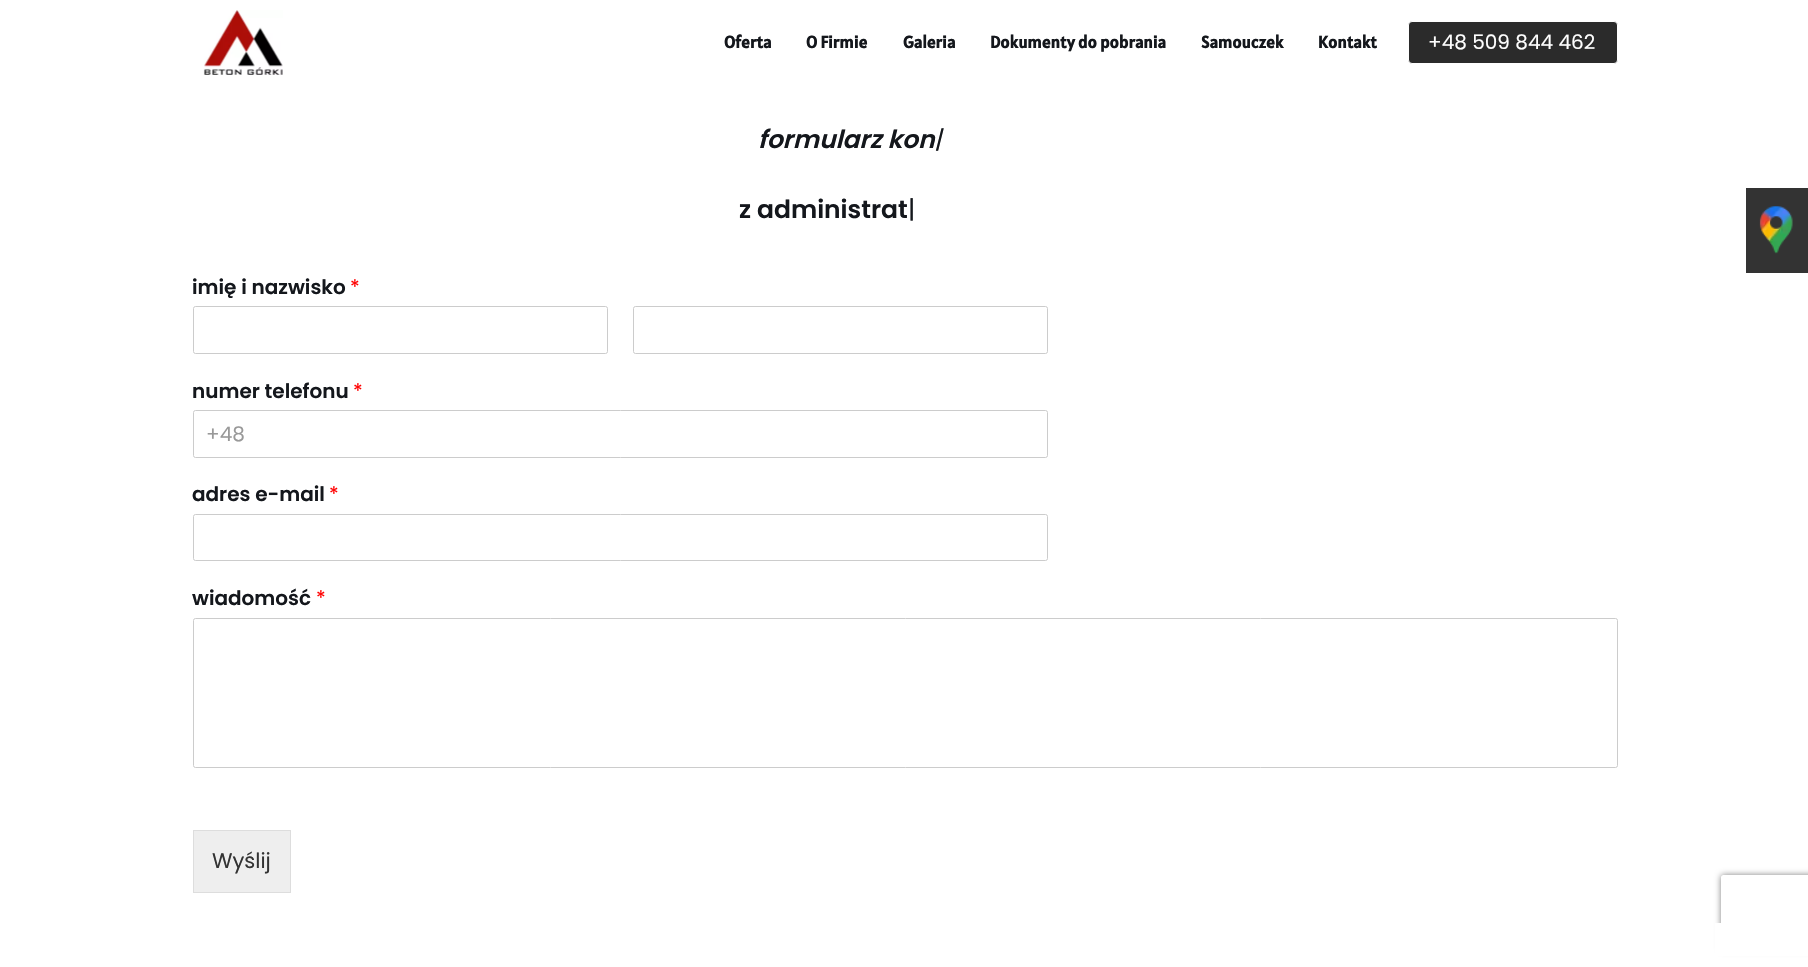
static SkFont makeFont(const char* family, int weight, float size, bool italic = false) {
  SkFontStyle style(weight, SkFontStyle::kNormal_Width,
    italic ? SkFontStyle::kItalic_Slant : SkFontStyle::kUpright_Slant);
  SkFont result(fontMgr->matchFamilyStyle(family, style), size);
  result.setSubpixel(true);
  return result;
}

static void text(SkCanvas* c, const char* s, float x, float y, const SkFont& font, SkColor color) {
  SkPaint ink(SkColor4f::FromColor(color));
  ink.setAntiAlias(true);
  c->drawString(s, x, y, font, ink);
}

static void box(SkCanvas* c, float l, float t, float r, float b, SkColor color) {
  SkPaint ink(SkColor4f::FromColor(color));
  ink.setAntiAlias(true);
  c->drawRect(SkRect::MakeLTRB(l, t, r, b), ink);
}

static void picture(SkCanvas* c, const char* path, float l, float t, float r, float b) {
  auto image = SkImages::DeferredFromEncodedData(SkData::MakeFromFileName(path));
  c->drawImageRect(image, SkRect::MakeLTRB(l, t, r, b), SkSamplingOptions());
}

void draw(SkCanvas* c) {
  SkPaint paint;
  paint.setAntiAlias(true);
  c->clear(0xffffffff);
  picture(c, "img_01.png", 203, 10, 283, 75);
  SkFont face1 = makeFont("Alatsi", 700, 17);
  text(c, "Oferta", 724, 48, face1, 0xff14171c);
  text(c, "O Firmie", 806, 48, face1, 0xff14171c);
  text(c, "Galeria", 903, 48, face1, 0xff14171c);
  text(c, "Dokumenty do pobrania", 990, 48, face1, 0xff14171c);
  text(c, "Samouczek", 1201, 48, face1, 0xff14171c);
  text(c, "Kontakt", 1318, 48, face1, 0xff14171c);
  paint.setColor(0xff2b2b2b);
  c->drawRoundRect(SkRect::MakeLTRB(1408.5f, 21.5f, 1617.5f, 63.5f), 3.5f, 3.5f, paint);
  paint.setStyle(SkPaint::kStroke_Style);
  paint.setStrokeWidth(1);
  paint.setColor(0xfffefefe);
  c->drawRoundRect(SkRect::MakeLTRB(1408.5f, 21.5f, 1617.5f, 63.5f), 3.5f, 3.5f, paint);
  SkFont face2 = makeFont("Poppins", 400, 20);
  text(c, "+48 509 844 462", 1428, 49, face2, 0xfffefefe);
  SkFont face3 = makeFont("Poppins", 600, 25, true);
  text(c, "formularz kon", 758, 148, face3, 0xff14171c);
  SkFont face4 = makeFont("Poppins", 400, 25, true);
  text(c, "|", 934, 148, face4, 0xff14171c);
  SkFont face5 = makeFont("Poppins", 600, 25);
  text(c, "z administrat", 739, 218, face5, 0xff14171c);
  SkFont face6 = makeFont("Poppins", 400, 25);
  text(c, "|", 908, 218, face6, 0xff14171c);
  SkFont face7 = makeFont("Poppins", 600, 20);
  text(c, "imię i nazwisko", 192, 294, face7, 0xff14171c);
  text(c, "*", 350, 294, face2, 0xffff0000);
  paint.setColor(0xffcccccc);
  c->drawRoundRect(SkRect::MakeLTRB(193.5f, 306.5f, 607.5f, 353.5f), 2, 2, paint);
  c->drawRoundRect(SkRect::MakeLTRB(633.5f, 306.5f, 1047.5f, 353.5f), 2, 2, paint);
  text(c, "numer telefonu", 192, 398, face7, 0xff14171c);
  text(c, "*", 353, 398, face2, 0xffff0000);
  c->drawRoundRect(SkRect::MakeLTRB(193.5f, 410.5f, 1047.5f, 457.5f), 2, 2, paint);
  text(c, "+48", 206, 441, face2, 0xff999999);
  text(c, "adres e-mail", 192, 501, face7, 0xff14171c);
  text(c, "*", 329, 501, face2, 0xffff0000);
  c->drawRoundRect(SkRect::MakeLTRB(193.5f, 514.5f, 1047.5f, 560.5f), 2, 2, paint);
  text(c, "wiadomość", 192, 605, face7, 0xff14171c);
  text(c, "*", 316, 605, face2, 0xffff0000);
  c->drawRoundRect(SkRect::MakeLTRB(193.5f, 618.5f, 1617.5f, 767.5f), 2, 2, paint);
  paint.setStyle(SkPaint::kFill_Style);
  paint.setColor(0xffeeeeee);
  c->drawRect(SkRect::MakeLTRB(193.5f, 830.5f, 290.5f, 892.5f), paint);
  paint.setStyle(SkPaint::kStroke_Style);
  paint.setColor(0xffdddddd);
  c->drawRect(SkRect::MakeLTRB(193.5f, 830.5f, 290.5f, 892.5f), paint);
  SkFont face8 = makeFont("Poppins", 400, 21);
  text(c, "Wyślij", 212, 868, face8, 0xff333333);
  c->save();
  c->clipPath(SkPathBuilder(SkPathFillType::kEvenOdd).moveTo(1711, 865).lineTo(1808, 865).lineTo(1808, 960).lineTo(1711, 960).close().moveTo(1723.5f, 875).lineTo(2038.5f, 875).cubicTo(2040, 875, 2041, 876, 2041, 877.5f).lineTo(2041, 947.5f).cubicTo(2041, 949, 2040, 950, 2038.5f, 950).lineTo(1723.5f, 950).cubicTo(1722, 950, 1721, 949, 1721, 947.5f).lineTo(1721, 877.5f).cubicTo(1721, 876, 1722, 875, 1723.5f, 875).close().detach(), true);
  paint.setStyle(SkPaint::kFill_Style);
  paint.setColor(0xff808080);
  paint.setMaskFilter(SkMaskFilter::MakeBlur(kNormal_SkBlurStyle, 3));
  c->drawRoundRect(SkRect::MakeLTRB(1721, 875, 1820, 950), 2.5f, 2.5f, paint);
  paint.setMaskFilter(nullptr);
  c->restore();
  box(c, 1715, 923, 1808, 956, 0xffffffff);
  box(c, 1746, 188, 1808, 273, 0xff333333);
  picture(c, "img_02.png", 1759, 206, 1793, 254);
}
